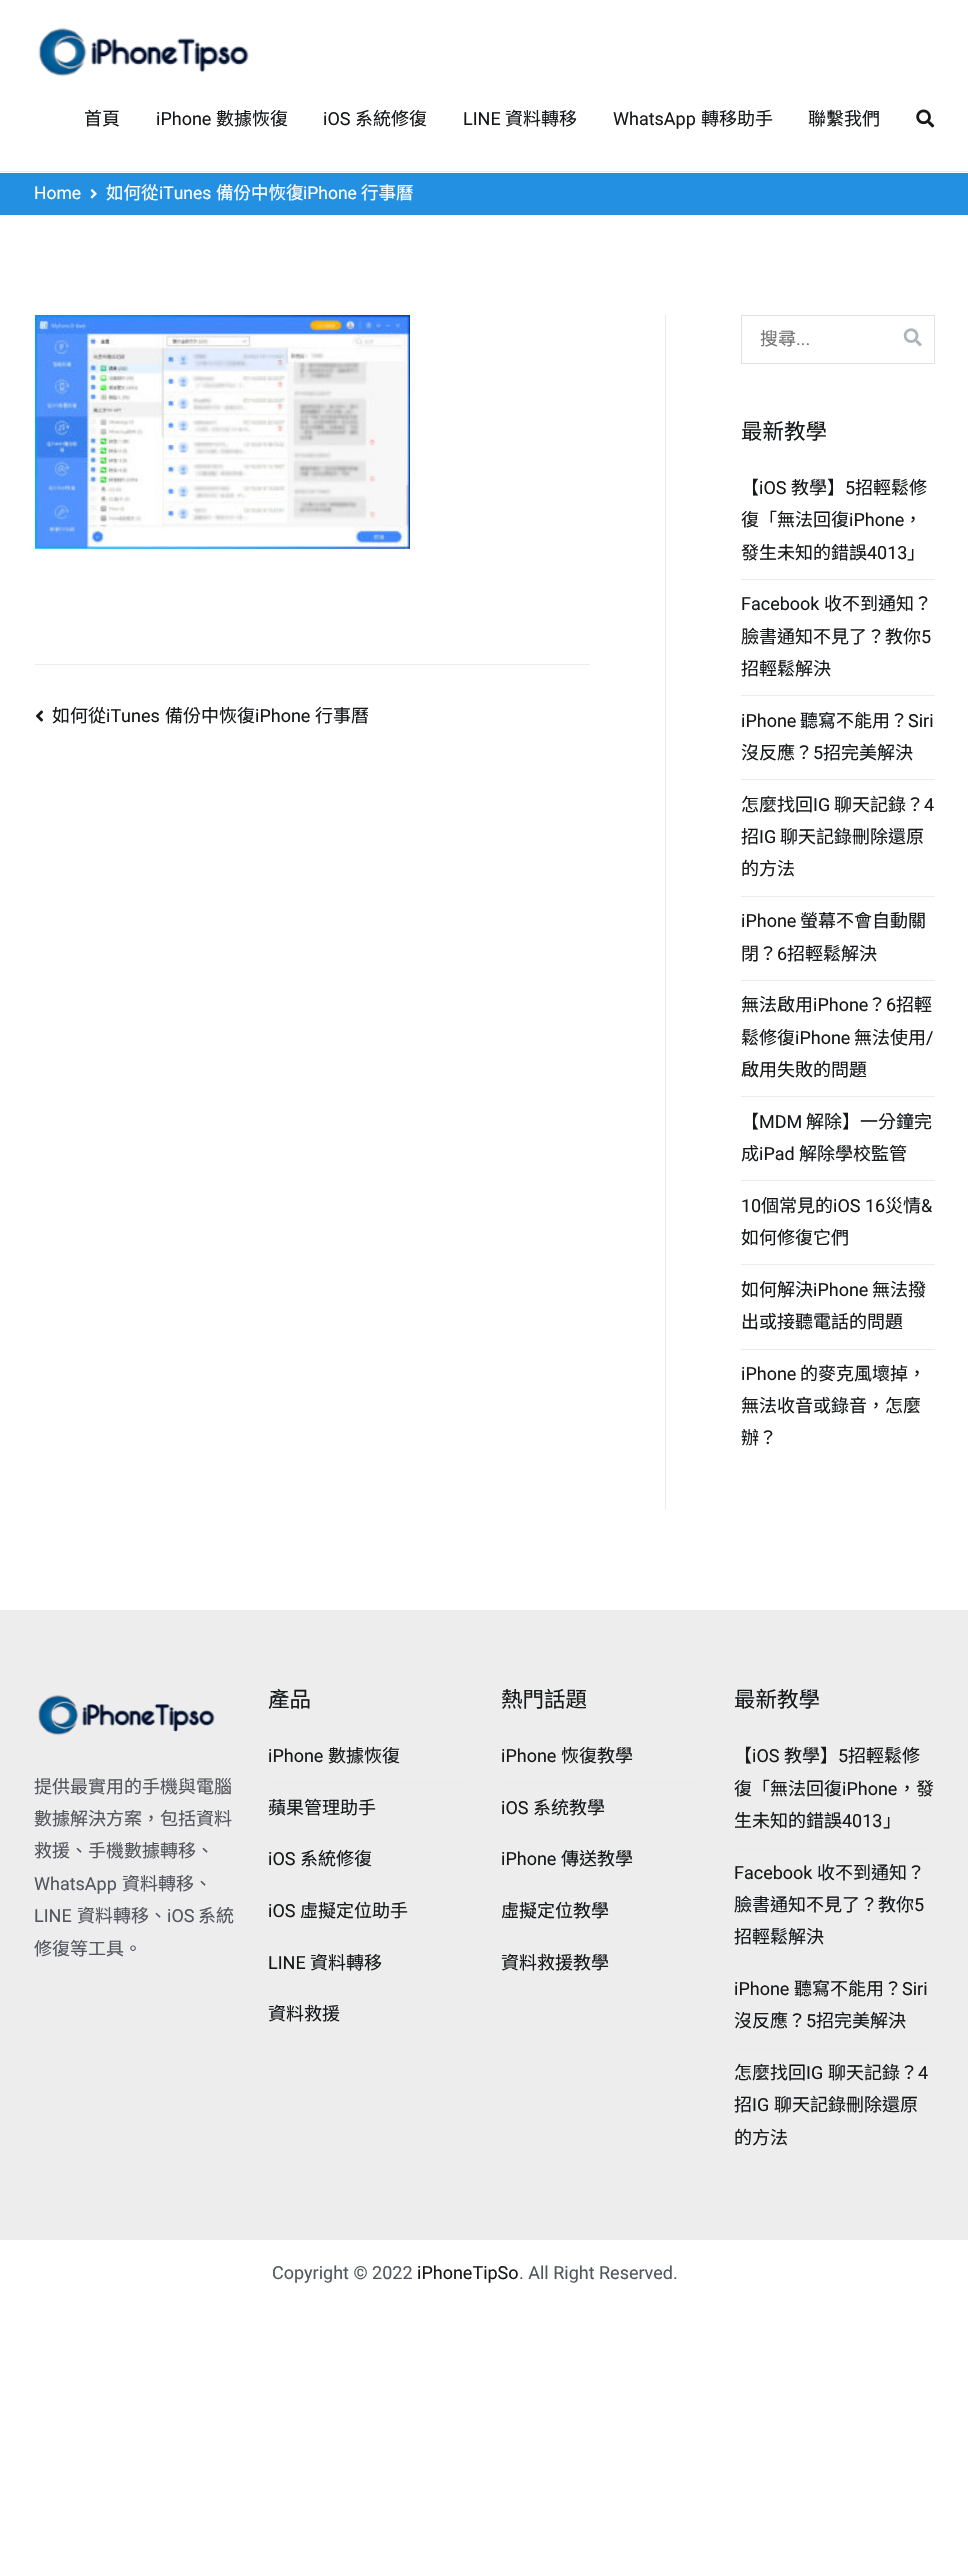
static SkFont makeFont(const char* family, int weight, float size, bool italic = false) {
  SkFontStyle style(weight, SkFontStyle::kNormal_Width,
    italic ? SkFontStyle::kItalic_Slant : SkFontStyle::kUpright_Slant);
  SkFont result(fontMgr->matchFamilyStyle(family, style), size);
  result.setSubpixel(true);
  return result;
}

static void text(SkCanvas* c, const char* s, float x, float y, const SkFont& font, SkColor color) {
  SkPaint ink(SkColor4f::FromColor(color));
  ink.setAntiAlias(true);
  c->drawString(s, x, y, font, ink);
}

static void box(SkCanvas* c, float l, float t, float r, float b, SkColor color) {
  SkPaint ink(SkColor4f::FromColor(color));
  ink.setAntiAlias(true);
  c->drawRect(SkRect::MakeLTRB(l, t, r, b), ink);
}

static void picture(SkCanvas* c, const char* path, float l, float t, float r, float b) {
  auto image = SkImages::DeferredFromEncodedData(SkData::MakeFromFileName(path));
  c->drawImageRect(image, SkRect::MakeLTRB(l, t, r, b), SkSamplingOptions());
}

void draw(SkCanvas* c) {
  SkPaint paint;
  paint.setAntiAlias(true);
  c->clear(0xffffffff);
  box(c, 0, 171, 968, 172, 0xffe9ecef);
  picture(c, "img_01.png", 38, 27, 249, 77);
  SkFont face1 = makeFont("Noto Sans CJK TC", 400, 18);
  text(c, "首頁", 84, 125, face1, 0xff16181a);
  SkFont face2 = makeFont("Roboto", 400, 18);
  text(c, "iPhone", 156, 125, face2, 0xff16181a);
  text(c, "數據恢復", 216, 125, face1, 0xff16181a);
  text(c, "iOS", 323, 125, face2, 0xff16181a);
  text(c, "系統修復", 355, 125, face1, 0xff16181a);
  text(c, "LINE", 463, 125, face2, 0xff16181a);
  text(c, "資料轉移", 505, 125, face1, 0xff16181a);
  text(c, "WhatsApp", 613, 125, face2, 0xff16181a);
  text(c, "轉移助手", 701, 125, face1, 0xff16181a);
  text(c, "聯繫我們", 808, 125, face1, 0xff16181a);
  picture(c, "img_02.png", 916, 109, 935, 128);
  box(c, 0, 173, 968, 215, 0xff2490e2);
  SkFont face3 = makeFont("Roboto", 400, 17.5f);
  text(c, "Home", 34, 199, face3, 0xffffffff);
  picture(c, "img_03.png", 90, 189, 97, 199);
  SkFont face4 = makeFont("Noto Sans CJK TC", 400, 17.5f);
  text(c, "如何從", 106, 199, face4, 0xffffffff);
  text(c, "iTunes", 159, 199, face3, 0xffffffff);
  text(c, "備份中恢復", 216, 199, face4, 0xffffffff);
  text(c, "iPhone", 303, 199, face3, 0xffffffff);
  text(c, "行事曆", 361, 199, face4, 0xffffffff);
  picture(c, "img_04.png", 35, 315, 410, 549);
  box(c, 35, 664, 590, 665, 0xffe9ecef);
  picture(c, "img_05.png", 36, 710, 43, 722);
  text(c, "如何從", 52, 722, face1, 0xff16181a);
  text(c, "iTunes", 106, 722, face2, 0xff16181a);
  text(c, "備份中恢復", 165, 722, face1, 0xff16181a);
  text(c, "iPhone", 255, 722, face2, 0xff16181a);
  text(c, "行事曆", 315, 722, face1, 0xff16181a);
  box(c, 665, 315, 666, 1510, 0xffe9ecef);
  paint.setStyle(SkPaint::kStroke_Style);
  paint.setStrokeWidth(1);
  paint.setColor(0xffdee2e6);
  c->drawRect(SkRect::MakeLTRB(741.5f, 315.5f, 934.5f, 363.5f), paint);
  text(c, "搜尋", 760, 345, face1, 0xff757575);
  text(c, "...", 796, 345, face2, 0xff757575);
  picture(c, "img_06.png", 903, 328, 922, 347);
  SkFont face5 = makeFont("Noto Sans CJK TC", 400, 21.5f);
  text(c, "最新教學", 741, 439, face5, 0xff16181a);
  box(c, 741, 579, 935, 580, 0xffe9ecef);
  text(c, "【", 741, 494, face1, 0xff16181a);
  text(c, "iOS", 759, 494, face2, 0xff16181a);
  text(c, "教學】", 791, 494, face1, 0xff16181a);
  text(c, "5", 845, 494, face2, 0xff16181a);
  text(c, "招輕鬆修", 855, 494, face1, 0xff16181a);
  text(c, "復「無法回復", 741, 526, face1, 0xff16181a);
  text(c, "iPhone", 849, 526, face2, 0xff16181a);
  text(c, "，", 904, 526, face1, 0xff16181a);
  text(c, "發生未知的錯誤", 741, 559, face1, 0xff16181a);
  text(c, "4013", 867, 559, face2, 0xff16181a);
  text(c, "」", 907, 559, face1, 0xff16181a);
  box(c, 741, 695, 935, 696, 0xffe9ecef);
  text(c, "Facebook", 741, 610, face2, 0xff16181a);
  text(c, "收不到通知？", 824, 610, face1, 0xff16181a);
  text(c, "臉書通知不見了？教你", 741, 643, face1, 0xff16181a);
  text(c, "5", 921, 643, face2, 0xff16181a);
  text(c, "招輕鬆解決", 741, 675, face1, 0xff16181a);
  box(c, 741, 779, 935, 780, 0xffe9ecef);
  text(c, "iPhone", 741, 727, face2, 0xff16181a);
  text(c, "聽寫不能用？", 800, 727, face1, 0xff16181a);
  text(c, "Siri", 908, 727, face2, 0xff16181a);
  text(c, "沒反應？", 741, 759, face1, 0xff16181a);
  text(c, "5", 813, 759, face2, 0xff16181a);
  text(c, "招完美解決", 823, 759, face1, 0xff16181a);
  box(c, 741, 896, 935, 897, 0xffe9ecef);
  text(c, "怎麼找回", 741, 811, face1, 0xff16181a);
  text(c, "IG", 813, 811, face2, 0xff16181a);
  text(c, "聊天記錄？", 834, 811, face1, 0xff16181a);
  text(c, "4", 924, 811, face2, 0xff16181a);
  text(c, "招", 741, 843, face1, 0xff16181a);
  text(c, "IG", 759, 843, face2, 0xff16181a);
  text(c, "聊天記錄刪除還原", 780, 843, face1, 0xff16181a);
  text(c, "的方法", 741, 875, face1, 0xff16181a);
  box(c, 741, 980, 935, 981, 0xffe9ecef);
  text(c, "iPhone", 741, 927, face2, 0xff16181a);
  text(c, "螢幕不會自動關", 800, 927, face1, 0xff16181a);
  text(c, "閉？", 741, 960, face1, 0xff16181a);
  text(c, "6", 777, 960, face2, 0xff16181a);
  text(c, "招輕鬆解決", 787, 960, face1, 0xff16181a);
  box(c, 741, 1096, 935, 1097, 0xffe9ecef);
  text(c, "無法啟用", 741, 1011, face1, 0xff16181a);
  text(c, "iPhone", 813, 1011, face2, 0xff16181a);
  text(c, "？", 868, 1011, face1, 0xff16181a);
  text(c, "6", 886, 1011, face2, 0xff16181a);
  text(c, "招輕", 896, 1011, face1, 0xff16181a);
  text(c, "鬆修復", 741, 1044, face1, 0xff16181a);
  text(c, "iPhone", 795, 1044, face2, 0xff16181a);
  text(c, "無法使用", 854, 1044, face1, 0xff16181a);
  text(c, "/", 926, 1044, face2, 0xff16181a);
  text(c, "啟用失敗的問題", 741, 1076, face1, 0xff16181a);
  box(c, 741, 1180, 935, 1181, 0xffe9ecef);
  text(c, "【", 741, 1128, face1, 0xff16181a);
  text(c, "MDM", 759, 1128, face2, 0xff16181a);
  text(c, "解除】一分鐘完", 806, 1128, face1, 0xff16181a);
  text(c, "成", 741, 1160, face1, 0xff16181a);
  text(c, "iPad", 759, 1160, face2, 0xff16181a);
  text(c, "解除學校監管", 799, 1160, face1, 0xff16181a);
  box(c, 741, 1264, 935, 1265, 0xffe9ecef);
  text(c, "10", 741, 1212, face2, 0xff16181a);
  text(c, "個常見的", 761, 1212, face1, 0xff16181a);
  text(c, "iOS 16", 833, 1212, face2, 0xff16181a);
  text(c, "災情", 885, 1212, face1, 0xff16181a);
  text(c, "&", 921, 1212, face2, 0xff16181a);
  text(c, "如何修復它們", 741, 1244, face1, 0xff16181a);
  box(c, 741, 1349, 935, 1350, 0xffe9ecef);
  text(c, "如何解決", 741, 1296, face1, 0xff16181a);
  text(c, "iPhone", 813, 1296, face2, 0xff16181a);
  text(c, "無法撥", 872, 1296, face1, 0xff16181a);
  text(c, "出或接聽電話的問題", 741, 1328, face1, 0xff16181a);
  text(c, "iPhone", 741, 1380, face2, 0xff16181a);
  text(c, "的麥克風壞掉，", 800, 1380, face1, 0xff16181a);
  text(c, "無法收音或錄音，怎麼", 741, 1412, face1, 0xff16181a);
  text(c, "辦？", 741, 1444, face1, 0xff16181a);
  box(c, 0, 1611, 968, 2240, 0xffededed);
  box(c, 0, 1610, 968, 1611, 0xffe9ecef);
  picture(c, "img_07.png", 38, 1695, 215, 1736);
  text(c, "提供最實用的手機與電腦", 34, 1793, face1, 0xff53565e);
  text(c, "數據解決方案，包括資料", 34, 1825, face1, 0xff53565e);
  text(c, "救援、手機數據轉移、", 34, 1857, face1, 0xff53565e);
  text(c, "WhatsApp", 34, 1890, face2, 0xff53565e);
  text(c, "資料轉移、", 122, 1890, face1, 0xff53565e);
  text(c, "LINE", 34, 1922, face2, 0xff53565e);
  text(c, "資料轉移、", 77, 1922, face1, 0xff53565e);
  text(c, "iOS", 167, 1922, face2, 0xff53565e);
  text(c, "系統", 198, 1922, face1, 0xff53565e);
  text(c, "修復等工具。", 34, 1955, face1, 0xff53565e);
  text(c, "產品", 268, 1707, face5, 0xff16181a);
  box(c, 268, 1783, 468, 1784, 0xffe9ecef);
  text(c, "iPhone", 268, 1762, face2, 0xff16181a);
  text(c, "數據恢復", 328, 1762, face1, 0xff16181a);
  box(c, 268, 1834, 468, 1835, 0xffe9ecef);
  text(c, "蘋果管理助手", 268, 1814, face1, 0xff16181a);
  box(c, 268, 1885, 468, 1886, 0xffe9ecef);
  text(c, "iOS", 268, 1865, face2, 0xff16181a);
  text(c, "系統修復", 300, 1865, face1, 0xff16181a);
  box(c, 268, 1938, 468, 1939, 0xffe9ecef);
  text(c, "iOS", 268, 1917, face2, 0xff16181a);
  text(c, "虛擬定位助手", 300, 1917, face1, 0xff16181a);
  box(c, 268, 1989, 468, 1990, 0xffe9ecef);
  text(c, "LINE", 268, 1969, face2, 0xff16181a);
  text(c, "資料轉移", 310, 1969, face1, 0xff16181a);
  text(c, "資料救援", 268, 2020, face1, 0xff16181a);
  text(c, "熱門話題", 501, 1707, face5, 0xff16181a);
  box(c, 501, 1783, 701, 1784, 0xffe9ecef);
  text(c, "iPhone", 501, 1762, face2, 0xff16181a);
  text(c, "恢復教學", 561, 1762, face1, 0xff16181a);
  box(c, 501, 1834, 701, 1835, 0xffe9ecef);
  text(c, "iOS", 501, 1814, face2, 0xff16181a);
  text(c, "系统教學", 533, 1814, face1, 0xff16181a);
  box(c, 501, 1885, 701, 1886, 0xffe9ecef);
  text(c, "iPhone", 501, 1865, face2, 0xff16181a);
  text(c, "傳送教學", 561, 1865, face1, 0xff16181a);
  box(c, 501, 1938, 701, 1939, 0xffe9ecef);
  text(c, "虛擬定位教學", 501, 1917, face1, 0xff16181a);
  text(c, "資料救援教學", 501, 1969, face1, 0xff16181a);
  text(c, "最新教學", 734, 1707, face5, 0xff16181a);
  box(c, 734, 1848, 934, 1849, 0xffe9ecef);
  text(c, "【", 734, 1762, face1, 0xff16181a);
  text(c, "iOS", 752, 1762, face2, 0xff16181a);
  text(c, "教學】", 784, 1762, face1, 0xff16181a);
  text(c, "5", 838, 1762, face2, 0xff16181a);
  text(c, "招輕鬆修", 848, 1762, face1, 0xff16181a);
  text(c, "復「無法回復", 734, 1795, face1, 0xff16181a);
  text(c, "iPhone", 842, 1795, face2, 0xff16181a);
  text(c, "，發", 898, 1795, face1, 0xff16181a);
  text(c, "生未知的錯誤", 734, 1827, face1, 0xff16181a);
  text(c, "4013", 842, 1827, face2, 0xff16181a);
  text(c, "」", 883, 1827, face1, 0xff16181a);
  box(c, 734, 1964, 934, 1965, 0xffe9ecef);
  text(c, "Facebook", 734, 1879, face2, 0xff16181a);
  text(c, "收不到通知？", 817, 1879, face1, 0xff16181a);
  text(c, "臉書通知不見了？教你", 734, 1911, face1, 0xff16181a);
  text(c, "5", 914, 1911, face2, 0xff16181a);
  text(c, "招輕鬆解決", 734, 1943, face1, 0xff16181a);
  box(c, 734, 2048, 934, 2049, 0xffe9ecef);
  text(c, "iPhone", 734, 1995, face2, 0xff16181a);
  text(c, "聽寫不能用？", 794, 1995, face1, 0xff16181a);
  text(c, "Siri", 902, 1995, face2, 0xff16181a);
  text(c, "沒反應？", 734, 2027, face1, 0xff16181a);
  text(c, "5", 806, 2027, face2, 0xff16181a);
  text(c, "招完美解決", 816, 2027, face1, 0xff16181a);
  text(c, "怎麼找回", 734, 2079, face1, 0xff16181a);
  text(c, "IG", 806, 2079, face2, 0xff16181a);
  text(c, "聊天記錄？", 828, 2079, face1, 0xff16181a);
  text(c, "4", 918, 2079, face2, 0xff16181a);
  text(c, "招", 734, 2111, face1, 0xff16181a);
  text(c, "IG", 752, 2111, face2, 0xff16181a);
  text(c, "聊天記錄刪除還原", 774, 2111, face1, 0xff16181a);
  text(c, "的方法", 734, 2144, face1, 0xff16181a);
  text(c, "Copyright © 2022", 272, 2279, face2, 0xff53565e);
  text(c, "iPhoneTipSo", 417, 2279, face2, 0xff16181a);
  text(c, ". All Right Reserved.", 519, 2279, face2, 0xff53565e);
}
